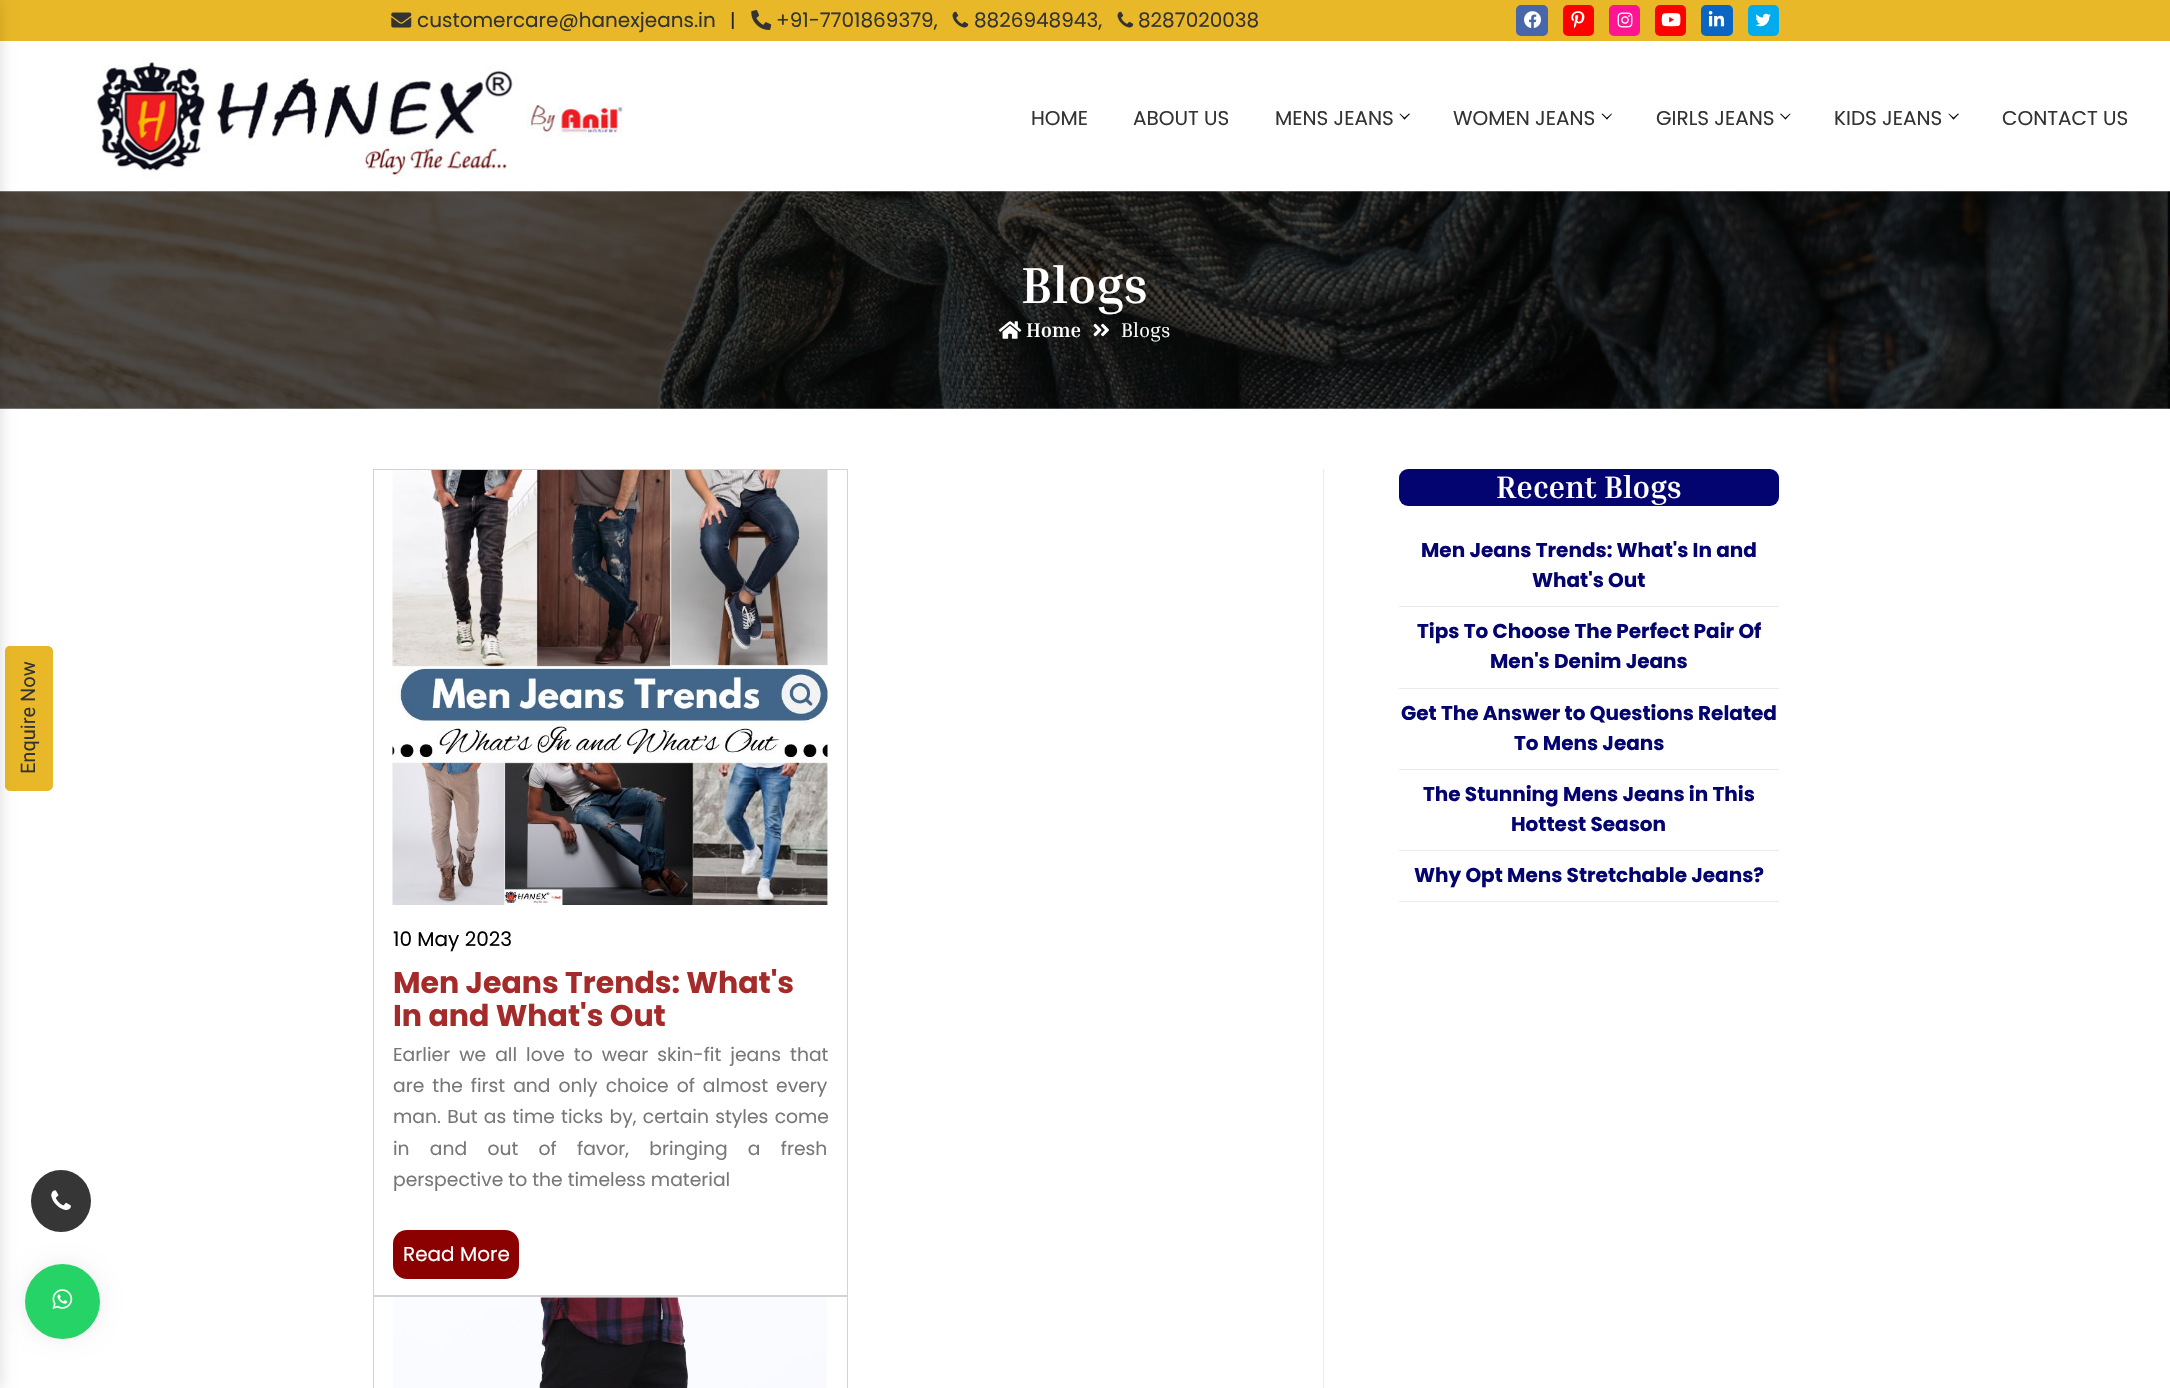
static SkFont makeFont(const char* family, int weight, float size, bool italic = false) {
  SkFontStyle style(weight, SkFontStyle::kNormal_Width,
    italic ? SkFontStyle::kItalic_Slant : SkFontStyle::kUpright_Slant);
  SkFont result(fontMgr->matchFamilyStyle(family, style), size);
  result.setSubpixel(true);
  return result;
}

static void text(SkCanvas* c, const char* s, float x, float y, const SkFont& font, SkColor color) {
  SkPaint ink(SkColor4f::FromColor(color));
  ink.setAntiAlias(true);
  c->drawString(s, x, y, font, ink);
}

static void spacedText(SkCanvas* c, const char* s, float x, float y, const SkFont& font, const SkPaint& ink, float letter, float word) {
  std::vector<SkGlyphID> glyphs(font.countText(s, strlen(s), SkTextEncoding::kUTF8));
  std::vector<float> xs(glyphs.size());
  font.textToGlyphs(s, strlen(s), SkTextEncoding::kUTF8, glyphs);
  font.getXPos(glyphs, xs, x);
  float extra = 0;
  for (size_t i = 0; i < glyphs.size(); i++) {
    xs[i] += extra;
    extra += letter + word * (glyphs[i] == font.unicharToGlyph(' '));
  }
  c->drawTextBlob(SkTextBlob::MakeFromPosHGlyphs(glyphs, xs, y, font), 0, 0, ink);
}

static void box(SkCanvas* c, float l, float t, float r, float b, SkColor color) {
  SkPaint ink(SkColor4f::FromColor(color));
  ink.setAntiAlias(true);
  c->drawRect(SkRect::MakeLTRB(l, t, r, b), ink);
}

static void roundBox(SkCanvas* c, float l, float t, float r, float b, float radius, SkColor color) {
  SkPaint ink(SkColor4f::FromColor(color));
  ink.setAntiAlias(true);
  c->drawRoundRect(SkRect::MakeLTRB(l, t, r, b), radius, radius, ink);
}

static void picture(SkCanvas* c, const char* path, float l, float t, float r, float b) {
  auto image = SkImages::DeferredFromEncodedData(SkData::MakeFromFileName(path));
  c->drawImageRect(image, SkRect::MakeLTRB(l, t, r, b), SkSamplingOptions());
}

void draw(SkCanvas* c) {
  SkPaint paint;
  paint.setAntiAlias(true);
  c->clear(0xffffffff);
  box(c, 0, 0, 2170, 41, 0xffe8b828);
  picture(c, "img_11.png", 0, 191, 2170, 409);
  paint.setColor(0xffe8b828);
  c->drawPath(SkPathBuilder().moveTo(5, 786).lineTo(5, 651).cubicTo(5, 648, 7, 646, 10, 646).lineTo(48, 646).cubicTo(50, 646, 53, 648, 53, 651).lineTo(53, 786).cubicTo(53, 788, 50, 791, 48, 791).lineTo(10, 791).cubicTo(7, 791, 5, 788, 5, 786).close().detach(), paint);
  paint.setColor(0x24000000);
  paint.setMaskFilter(SkMaskFilter::MakeBlur(kNormal_SkBlurStyle, 7.5f));
  c->drawRect(SkRect::MakeLTRB(-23, 0, 0, 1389), paint);
  paint.setMaskFilter(nullptr);
  picture(c, "img_01.png", 391, 12, 412, 28);
  SkFont face1 = makeFont("Poppins", 400, 20);
  text(c, "customercare@hanexjeans.in", 417, 27, face1, 0xff333333);
  SkFont face2 = makeFont("Poppins", 400, 18.75f);
  text(c, "|", 730, 27, face2, 0xff212529);
  picture(c, "img_02.png", 751, 10, 772, 30);
  text(c, "+91-7701869379,", 776, 27, face1, 0xff333333);
  picture(c, "img_03.png", 952, 11, 969, 28);
  text(c, "8826948943,", 974, 27, face1, 0xff333333);
  picture(c, "img_03.png", 1117, 11, 1134, 28);
  text(c, "8287020038", 1138, 27, face1, 0xff333333);
  roundBox(c, 1516, 5, 1548, 36, 5, 0xff4867aa);
  picture(c, "img_04.png", 1524, 11, 1541, 28);
  roundBox(c, 1563, 5, 1594, 36, 5, 0xffff0000);
  picture(c, "img_05.png", 1571, 11, 1585, 29);
  roundBox(c, 1609, 5, 1640, 36, 5, 0xffff1493);
  picture(c, "img_06.png", 1617, 12, 1633, 28);
  roundBox(c, 1655, 5, 1686, 36, 5, 0xffff0000);
  picture(c, "img_07.png", 1661, 13, 1681, 27);
  roundBox(c, 1701, 5, 1733, 36, 5, 0xff0a66c2);
  picture(c, "img_08.png", 1708, 11, 1725, 27);
  roundBox(c, 1748, 5, 1779, 36, 5, 0xff00acee);
  picture(c, "img_09.png", 1755, 13, 1771, 27);
  picture(c, "img_10.png", 95, 57, 623, 177);
  text(c, "HOME", 1031, 125, face1, 0xff333333);
  text(c, "ABOUT US", 1133, 125, face1, 0xff333333);
  text(c, "MENS JEANS", 1275, 125, face1, 0xff333333);
  paint.setColor(0xff000000);
  c->drawPath(SkPathBuilder().moveTo(1409, 113.5f).lineTo(1410, 114).lineTo(1404.5f, 119.5f).lineTo(1403.5f, 118.5f).close().detach(), paint);
  c->drawPath(SkPathBuilder().moveTo(1400, 113.5f).lineTo(1405.5f, 118.5f).lineTo(1404.5f, 119.5f).lineTo(1399.5f, 114).close().detach(), paint);
  text(c, "WOMEN JEANS", 1453, 125, face1, 0xff333333);
  c->drawPath(SkPathBuilder().moveTo(1611.5f, 113.5f).lineTo(1612, 114).lineTo(1607, 119.5f).lineTo(1606, 118.5f).close().detach(), paint);
  c->drawPath(SkPathBuilder().moveTo(1602.5f, 113.5f).lineTo(1607.5f, 118.5f).lineTo(1607, 119.5f).lineTo(1601.5f, 114).close().detach(), paint);
  text(c, "GIRLS JEANS", 1656, 125, face1, 0xff333333);
  c->drawPath(SkPathBuilder().moveTo(1790, 113.5f).lineTo(1790.5f, 114).lineTo(1785.5f, 119.5f).lineTo(1784.5f, 118.5f).close().detach(), paint);
  c->drawPath(SkPathBuilder().moveTo(1781, 113.5f).lineTo(1786, 118.5f).lineTo(1785.5f, 119.5f).lineTo(1780, 114).close().detach(), paint);
  text(c, "KIDS JEANS", 1834, 125, face1, 0xff333333);
  c->drawPath(SkPathBuilder().moveTo(1958, 113.5f).lineTo(1959, 114).lineTo(1953.5f, 119.5f).lineTo(1952.5f, 118.5f).close().detach(), paint);
  c->drawPath(SkPathBuilder().moveTo(1949, 113.5f).lineTo(1954.5f, 118.5f).lineTo(1953.5f, 119.5f).lineTo(1948.5f, 114).close().detach(), paint);
  text(c, "CONTACT US", 2002, 125, face1, 0xff333333);
  SkFont face3 = makeFont("Inria Serif", 700, 51);
  text(c, "Blogs", 1021, 303, face3, 0xffffffff);
  picture(c, "img_12.png", 998, 321, 1022, 339);
  SkFont face4 = makeFont("Inria Serif", 700, 20);
  text(c, "Home", 1026, 337, face4, 0xffffffff);
  picture(c, "img_13.png", 1093, 323, 1109, 337);
  SkFont face5 = makeFont("Inria Serif", 400, 20);
  text(c, "Blogs", 1121, 337, face5, 0xffffffff);
  SkFont face6 = makeFont("Roboto", 400, 20);
  c->save();
  c->rotate(-90, 35, 774);
  text(c, "Enquire Now", 35, 774, face6, 0xff333333);
  c->restore();
  box(c, 1323, 469, 1324, 1388, 0xffe9ecef);
  roundBox(c, 1399, 469, 1779, 506, 9, 0xff040470);
  SkFont face7 = makeFont("Inria Serif", 700, 31.25f);
  text(c, "Recent Blogs", 1496, 498, face7, 0xffffffff);
  box(c, 1399, 606, 1779, 607, 0xffe9ecef);
  SkFont face8 = makeFont("Poppins", 700, 20);
  text(c, "Men Jeans Trends: What's In and", 1421, 557, face8, 0xff040470);
  text(c, "What's Out", 1532, 587, face8, 0xff040470);
  box(c, 1399, 688, 1779, 689, 0xffe9ecef);
  text(c, "Tips To Choose The Perfect Pair Of", 1417, 638, face8, 0xff040470);
  text(c, "Men's Denim Jeans", 1490, 668, face8, 0xff040470);
  box(c, 1399, 769, 1779, 770, 0xffe9ecef);
  text(c, "Get The Answer to Questions Related", 1401, 720, face8, 0xff040470);
  text(c, "To Mens Jeans", 1514, 750, face8, 0xff040470);
  box(c, 1399, 850, 1779, 851, 0xffe9ecef);
  text(c, "The Stunning Mens Jeans in This", 1423, 801, face8, 0xff040470);
  text(c, "Hottest Season", 1511, 831, face8, 0xff040470);
  box(c, 1399, 901, 1779, 902, 0xffe9ecef);
  text(c, "Why Opt Mens Stretchable Jeans?", 1414, 882, face8, 0xff040470);
  paint.setStyle(SkPaint::kStroke_Style);
  paint.setStrokeWidth(1);
  paint.setColor(0xffd3d3d3);
  c->drawRect(SkRect::MakeLTRB(373.5f, 469.5f, 847.5f, 1295.5f), paint);
  picture(c, "img_14.png", 392, 470, 828, 905);
  text(c, "10 May 2023", 393, 946, face1, 0xff000000);
  SkFont face9 = makeFont("Poppins", 700, 30);
  text(c, "Men Jeans Trends: What's", 393, 993, face9, 0xffa52a2a);
  text(c, "In and What's Out", 393, 1026, face9, 0xffa52a2a);
  paint.setStyle(SkPaint::kFill_Style);
  paint.setColor(0xff777777);
  spacedText(c, "Earlier we all love to wear skin-fit jeans that", 393, 1061, face2, paint, 0, 4);
  spacedText(c, "are the first and only choice of almost every", 393, 1092, face2, paint, 0, 3);
  spacedText(c, "man. But as time ticks by, certain styles come", 393, 1123, face2, paint, 0, 1.25f);
  spacedText(c, "in and out of favor, bringing a fresh", 393, 1155, face2, paint, 0, 15.25f);
  text(c, "perspective to the timeless material", 393, 1186, face2, 0xff777777);
  roundBox(c, 393, 1230, 519, 1279, 14, 0xff8b0000);
  text(c, "Read More", 403, 1261, face1, 0xffffffff);
  paint.setStyle(SkPaint::kStroke_Style);
  paint.setColor(0xffd3d3d3);
  c->drawRect(SkRect::MakeLTRB(373.5f, 1296.5f, 847.5f, 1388.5f), paint);
  picture(c, "img_15.png", 393, 1297, 827, 1388);
  paint.setStyle(SkPaint::kFill_Style);
  paint.setColor(0xff363636);
  c->drawOval(SkRect::MakeLTRB(31, 1170, 91, 1232), paint);
  picture(c, "img_16.png", 51, 1190, 71, 1210);
  paint.setColor(0x26000000);
  paint.setMaskFilter(SkMaskFilter::MakeBlur(kNormal_SkBlurStyle, 12.5f));
  c->drawRoundRect(SkRect::MakeLTRB(31, 1270, 94, 1333), 31.5f, 31.5f, paint);
  paint.setMaskFilter(nullptr);
  paint.setColor(0xff25d366);
  c->drawCircle(62.5f, 1301.5f, 37.5f, paint);
  picture(c, "img_17.png", 52, 1289, 73, 1309);
}
